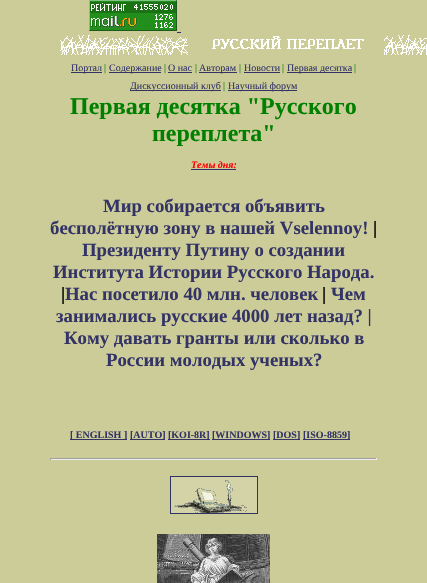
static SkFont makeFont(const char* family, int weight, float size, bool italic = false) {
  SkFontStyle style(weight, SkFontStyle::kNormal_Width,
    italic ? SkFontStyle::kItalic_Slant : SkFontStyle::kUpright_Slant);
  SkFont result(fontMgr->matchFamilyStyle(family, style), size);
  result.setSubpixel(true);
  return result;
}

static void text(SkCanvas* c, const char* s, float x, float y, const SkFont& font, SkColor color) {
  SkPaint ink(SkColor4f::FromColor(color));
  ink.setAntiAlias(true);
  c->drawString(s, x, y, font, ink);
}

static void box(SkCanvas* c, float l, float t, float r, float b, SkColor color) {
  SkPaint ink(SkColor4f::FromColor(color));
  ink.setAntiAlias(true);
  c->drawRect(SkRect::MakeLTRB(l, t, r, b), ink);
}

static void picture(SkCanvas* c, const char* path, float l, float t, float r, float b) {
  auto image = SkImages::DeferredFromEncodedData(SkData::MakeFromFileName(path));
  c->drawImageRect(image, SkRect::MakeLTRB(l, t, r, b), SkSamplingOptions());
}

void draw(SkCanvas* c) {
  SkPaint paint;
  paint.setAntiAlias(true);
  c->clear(0xffcccc99);
  picture(c, "img_01.png", 89, 0, 177, 31);
  box(c, 177, 32, 181, 33, 0xff333366);
  picture(c, "img_02.png", 60, 35, 427, 55);
  box(c, 71, 72, 102, 73, 0xff333366);
  SkFont face1 = makeFont("Liberation Serif", 400, 10);
  text(c, "Портал", 71, 71, face1, 0xff333366);
  text(c, "|", 104, 71, face1, 0xff008000);
  box(c, 109, 72, 161, 73, 0xff333366);
  text(c, "Содержание", 109, 71, face1, 0xff333366);
  text(c, "|", 164, 71, face1, 0xff008000);
  text(c, "О нас", 168, 71, face1, 0xff333366);
  box(c, 168, 72, 192, 73, 0xff333366);
  text(c, "|", 195, 71, face1, 0xff008000);
  box(c, 199, 72, 237, 73, 0xff333366);
  text(c, "Авторам", 199, 71, face1, 0xff333366);
  text(c, "|", 239, 71, face1, 0xff008000);
  text(c, "Новости", 244, 71, face1, 0xff333366);
  box(c, 244, 72, 280, 73, 0xff333366);
  text(c, "|", 282, 71, face1, 0xff008000);
  box(c, 287, 72, 352, 73, 0xff333366);
  text(c, "Первая десятка", 287, 71, face1, 0xff333366);
  text(c, "|", 354, 71, face1, 0xff008000);
  box(c, 130, 90, 221, 91, 0xff333366);
  text(c, "Дискуссионный клуб", 130, 89, face1, 0xff333366);
  text(c, "|", 223, 89, face1, 0xff008000);
  box(c, 228, 90, 297, 91, 0xff333366);
  text(c, "Научный форум", 228, 89, face1, 0xff333366);
  SkFont face2 = makeFont("Liberation Serif", 700, 24);
  text(c, "Первая десятка \"Русского", 70, 114, face2, 0xff008000);
  text(c, "переплета\"", 152, 141, face2, 0xff008000);
  SkFont face3 = makeFont("Liberation Serif", 700, 10, true);
  text(c, "Темы дня:", 191, 168, face3, 0xffff0000);
  box(c, 191, 169, 236, 170, 0xff333366);
  SkFont face4 = makeFont("Liberation Serif", 700, 18.75f);
  text(c, "Мир собирается объявить", 103, 212, face4, 0xff333366);
  text(c, "бесполётную зону в нашей Vselennoy!", 50, 234, face4, 0xff333366);
  text(c, "|", 373, 234, face4, 0xff000000);
  text(c, "Президенту Путину о создании", 82, 256, face4, 0xff333366);
  text(c, "Института Истории Русского Народа.", 53, 278, face4, 0xff333366);
  text(c, "|", 61, 300, face4, 0xff000000);
  text(c, "Нас посетило 40 млн. человек", 65, 300, face4, 0xff333366);
  text(c, "|", 322, 300, face4, 0xff000000);
  text(c, "Чем", 331, 300, face4, 0xff333366);
  text(c, "занимались русские 4000 лет назад? |", 56, 322, face4, 0xff333366);
  text(c, "Кому давать гранты или сколько в", 64, 344, face4, 0xff333366);
  text(c, "России молодых ученых?", 106, 366, face4, 0xff333366);
  box(c, 70, 439, 127, 440, 0xff333366);
  SkFont face5 = makeFont("Liberation Serif", 700, 10);
  text(c, "[ ENGLISH ]", 70, 438, face5, 0xff333366);
  box(c, 130, 439, 165, 440, 0xff333366);
  text(c, "[AUTO]", 130, 438, face5, 0xff333366);
  box(c, 168, 439, 210, 440, 0xff333366);
  text(c, "[KOI-8R]", 168, 438, face5, 0xff333366);
  box(c, 212, 439, 270, 440, 0xff333366);
  text(c, "[WINDOWS]", 212, 438, face5, 0xff333366);
  box(c, 273, 439, 300, 440, 0xff333366);
  text(c, "[DOS]", 273, 438, face5, 0xff333366);
  box(c, 303, 439, 350, 440, 0xff333366);
  text(c, "[ISO-8859]", 303, 438, face5, 0xff333366);
  box(c, 50, 458, 377, 459, 0xff9f9f9f);
  box(c, 376, 458, 377, 460, 0xffeeeeee);
  box(c, 50, 459, 377, 460, 0xffeeeeee);
  box(c, 50, 458, 51, 460, 0xff9f9f9f);
  picture(c, "img_03.png", 170, 476, 258, 514);
  picture(c, "img_04.png", 157, 534, 270, 583);
}
